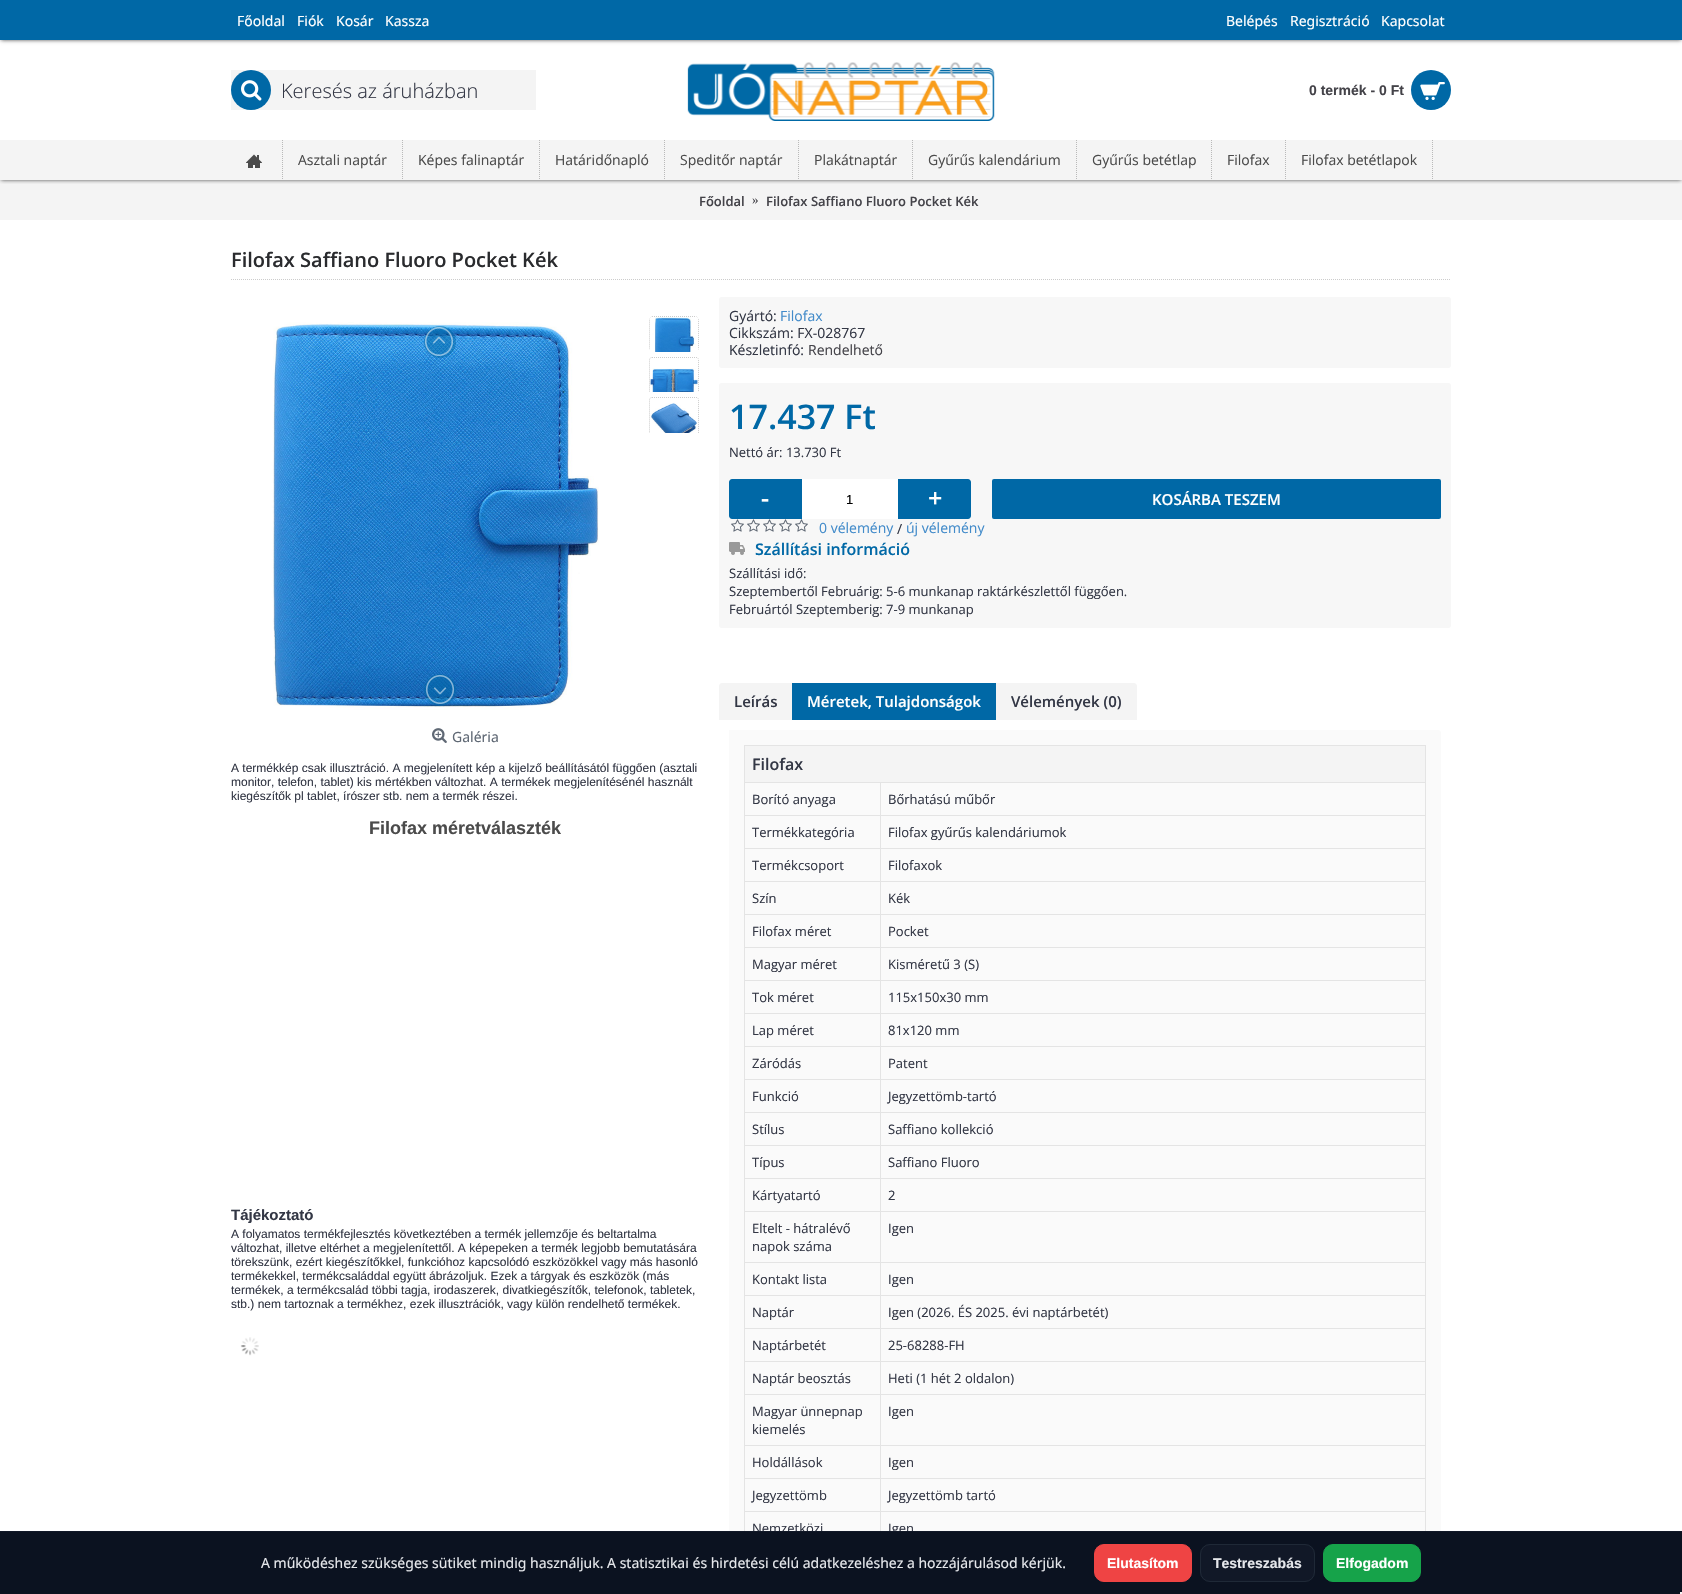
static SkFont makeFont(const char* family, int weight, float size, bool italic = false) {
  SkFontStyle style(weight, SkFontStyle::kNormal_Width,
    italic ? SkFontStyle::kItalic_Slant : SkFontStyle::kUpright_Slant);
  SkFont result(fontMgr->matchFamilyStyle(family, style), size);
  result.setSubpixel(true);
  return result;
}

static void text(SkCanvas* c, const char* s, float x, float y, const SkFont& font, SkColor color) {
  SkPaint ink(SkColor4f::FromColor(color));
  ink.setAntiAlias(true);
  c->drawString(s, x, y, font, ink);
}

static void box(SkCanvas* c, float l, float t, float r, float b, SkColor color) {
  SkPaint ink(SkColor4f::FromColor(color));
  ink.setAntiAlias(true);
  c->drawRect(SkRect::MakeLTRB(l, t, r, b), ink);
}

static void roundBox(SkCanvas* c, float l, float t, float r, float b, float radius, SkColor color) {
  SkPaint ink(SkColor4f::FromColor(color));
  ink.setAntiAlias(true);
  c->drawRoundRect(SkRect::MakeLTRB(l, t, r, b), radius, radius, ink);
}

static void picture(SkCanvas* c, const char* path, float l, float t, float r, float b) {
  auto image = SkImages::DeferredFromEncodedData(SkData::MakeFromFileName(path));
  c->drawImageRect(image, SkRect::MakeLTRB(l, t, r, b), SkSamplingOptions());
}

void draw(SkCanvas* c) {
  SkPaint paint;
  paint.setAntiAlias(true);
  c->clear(0xffffffff);
  box(c, 0, 180, 1682, 220, 0xfff4f4f4);
  c->save();
  c->clipRect(SkRect::MakeLTRB(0, 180, 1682, 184));
  paint.setColor(0xb3000000);
  paint.setMaskFilter(SkMaskFilter::MakeBlur(kNormal_SkBlurStyle, 2));
  c->drawRect(SkRect::MakeLTRB(1, 2, 1681, 180), paint);
  paint.setMaskFilter(nullptr);
  c->restore();
  paint.setMaskFilter(SkMaskFilter::MakeBlur(kNormal_SkBlurStyle, 2));
  c->drawRect(SkRect::MakeLTRB(1, 2, 1681, 40), paint);
  paint.setMaskFilter(nullptr);
  box(c, 0, 0, 1682, 40, 0xff0068a6);
  SkFont face1 = makeFont("Noto Sans", 400, 14);
  text(c, "Főoldal", 237, 26, face1, 0xffffffff);
  text(c, "Fiók", 297, 26, face1, 0xffffffff);
  text(c, "Kosár", 336, 26, face1, 0xffffffff);
  text(c, "Kassza", 385, 26, face1, 0xffffffff);
  text(c, "Belépés", 1226, 26, face1, 0xffffffff);
  text(c, "Regisztráció", 1290, 26, face1, 0xffffffff);
  text(c, "Kapcsolat", 1381, 26, face1, 0xffffffff);
  box(c, 231, 70, 536, 110, 0xfff4f4f4);
  paint.setColor(0xff0068a6);
  c->drawCircle(251, 90, 20, paint);
  picture(c, "img_01.png", 241, 80, 262, 101);
  SkFont face2 = makeFont("Open Sans", 300, 20);
  text(c, "Keresés az áruházban", 281, 98, face2, 0xff333745);
  picture(c, "img_02.png", 687, 62, 995, 121);
  SkFont face3 = makeFont("Liberation Sans", 700, 14);
  text(c, "0 termék - 0 Ft", 1309, 95, face3, 0xff444349);
  c->drawCircle(1431, 90, 20, paint);
  picture(c, "img_03.png", 1420, 82, 1445, 100);
  box(c, 0, 140, 1682, 180, 0xfff4f4f4);
  paint.setStyle(SkPaint::kStroke_Style);
  paint.setStrokeWidth(1);
  paint.setColor(0xffb9b9b9);
  paint.setPathEffect(SkDashPathEffect::Make({{1, 1}}, 0));
  c->drawPath(SkPathBuilder().moveTo(282.5f, 140).lineTo(282.5f, 180).detach(), paint);
  paint.setPathEffect(nullptr);
  picture(c, "img_04.png", 246, 154, 262, 168);
  paint.setPathEffect(SkDashPathEffect::Make({{1, 1}}, 0));
  c->drawPath(SkPathBuilder().moveTo(402.5f, 140).lineTo(402.5f, 180).detach(), paint);
  paint.setPathEffect(nullptr);
  SkFont face4 = makeFont("Open Sans", 400, 14);
  text(c, "Asztali naptár", 298, 165, face4, 0xff4b4b4b);
  paint.setPathEffect(SkDashPathEffect::Make({{1, 1}}, 0));
  c->drawPath(SkPathBuilder().moveTo(539.5f, 140).lineTo(539.5f, 180).detach(), paint);
  paint.setPathEffect(nullptr);
  text(c, "Képes falinaptár", 418, 165, face4, 0xff4b4b4b);
  paint.setPathEffect(SkDashPathEffect::Make({{1, 1}}, 0));
  c->drawPath(SkPathBuilder().moveTo(664.5f, 140).lineTo(664.5f, 180).detach(), paint);
  paint.setPathEffect(nullptr);
  text(c, "Határidőnapló", 555, 165, face4, 0xff4b4b4b);
  paint.setPathEffect(SkDashPathEffect::Make({{1, 1}}, 0));
  c->drawPath(SkPathBuilder().moveTo(798.5f, 140).lineTo(798.5f, 180).detach(), paint);
  paint.setPathEffect(nullptr);
  text(c, "Speditőr naptár", 680, 165, face4, 0xff4b4b4b);
  paint.setPathEffect(SkDashPathEffect::Make({{1, 1}}, 0));
  c->drawPath(SkPathBuilder().moveTo(912.5f, 140).lineTo(912.5f, 180).detach(), paint);
  paint.setPathEffect(nullptr);
  text(c, "Plakátnaptár", 814, 165, face4, 0xff4b4b4b);
  paint.setPathEffect(SkDashPathEffect::Make({{1, 1}}, 0));
  c->drawPath(SkPathBuilder().moveTo(1076.5f, 140).lineTo(1076.5f, 180).detach(), paint);
  paint.setPathEffect(nullptr);
  text(c, "Gyűrűs kalendárium", 928, 165, face4, 0xff4b4b4b);
  paint.setPathEffect(SkDashPathEffect::Make({{1, 1}}, 0));
  c->drawPath(SkPathBuilder().moveTo(1211.5f, 140).lineTo(1211.5f, 180).detach(), paint);
  paint.setPathEffect(nullptr);
  text(c, "Gyűrűs betétlap", 1092, 165, face4, 0xff4b4b4b);
  paint.setPathEffect(SkDashPathEffect::Make({{1, 1}}, 0));
  c->drawPath(SkPathBuilder().moveTo(1285.5f, 140).lineTo(1285.5f, 180).detach(), paint);
  paint.setPathEffect(nullptr);
  text(c, "Filofax", 1227, 165, face4, 0xff4b4b4b);
  paint.setPathEffect(SkDashPathEffect::Make({{1, 1}}, 0));
  c->drawPath(SkPathBuilder().moveTo(1432.5f, 140).lineTo(1432.5f, 180).detach(), paint);
  paint.setPathEffect(nullptr);
  text(c, "Filofax betétlapok", 1301, 165, face4, 0xff4b4b4b);
  SkFont face5 = makeFont("Open Sans", 600, 13);
  text(c, "Főoldal", 699, 206, face5, 0xff444349);
  SkFont face6 = makeFont("Liberation Serif", 400, 13);
  text(c, "»", 752, 204, face6, 0xff444349);
  text(c, "Filofax Saffiano Fluoro Pocket Kék", 766, 206, face5, 0xff444349);
  paint.setColor(0xffcccccc);
  paint.setPathEffect(SkDashPathEffect::Make({{1, 1}}, 0));
  c->drawPath(SkPathBuilder().moveTo(231, 279.5f).lineTo(1451, 279.5f).detach(), paint);
  paint.setPathEffect(nullptr);
  SkFont face7 = makeFont("Open Sans", 600, 20);
  text(c, "Filofax Saffiano Fluoro Pocket Kék", 231, 267, face7, 0xff2a2b2e);
  picture(c, "img_05.png", 231, 322, 631, 710);
  paint.setStyle(SkPaint::kFill_Style);
  paint.setColor(0x800068a6);
  c->drawCircle(440, 342, 16, paint);
  picture(c, "img_06.png", 425, 327, 453, 356);
  c->drawCircle(440, 690, 16, paint);
  picture(c, "img_07.png", 426, 675, 454, 704);
  c->save();
  c->clipPath(SkPathBuilder().moveTo(654, 316).lineTo(694, 316).cubicTo(697, 316, 699, 318, 699, 321).lineTo(699, 347).cubicTo(699, 350, 697, 352, 694, 352).lineTo(654, 352).cubicTo(651, 352, 649, 350, 649, 347).lineTo(649, 321).cubicTo(649, 318, 651, 316, 654, 316).close().detach(), true);
  paint.setStyle(SkPaint::kStroke_Style);
  paint.setColor(0xffcccccc);
  paint.setPathEffect(SkDashPathEffect::Make({{1, 1}}, 0));
  c->drawPath(SkPathBuilder().moveTo(652, 316.5f).lineTo(696, 316.5f).cubicTo(697.5f, 316.5f, 698.5f, 317.5f, 698.5f, 319).lineTo(698.5f, 363).cubicTo(698.5f, 364.5f, 697.5f, 365.5f, 696, 365.5f).lineTo(652, 365.5f).cubicTo(650.5f, 365.5f, 649.5f, 364.5f, 649.5f, 363).lineTo(649.5f, 319).cubicTo(649.5f, 317.5f, 650.5f, 316.5f, 652, 316.5f).close().detach(), paint);
  paint.setPathEffect(nullptr);
  c->restore();
  picture(c, "img_08.png", 650, 317, 698, 352);
  c->save();
  c->clipRect(SkRect::MakeLTRB(649, 357, 699, 392));
  paint.setPathEffect(SkDashPathEffect::Make({{1, 1}}, 0));
  c->drawPath(SkPathBuilder().moveTo(652, 357.5f).lineTo(696, 357.5f).cubicTo(697.5f, 357.5f, 698.5f, 358.5f, 698.5f, 360).lineTo(698.5f, 404).cubicTo(698.5f, 405.5f, 697.5f, 406.5f, 696, 406.5f).lineTo(652, 406.5f).cubicTo(650.5f, 406.5f, 649.5f, 405.5f, 649.5f, 404).lineTo(649.5f, 360).cubicTo(649.5f, 358.5f, 650.5f, 357.5f, 652, 357.5f).close().detach(), paint);
  paint.setPathEffect(nullptr);
  c->restore();
  picture(c, "img_09.png", 650, 358, 698, 392);
  c->save();
  c->clipRect(SkRect::MakeLTRB(649, 397, 699, 433));
  paint.setPathEffect(SkDashPathEffect::Make({{1, 1}}, 0));
  c->drawPath(SkPathBuilder().moveTo(652, 397.5f).lineTo(696, 397.5f).cubicTo(697.5f, 397.5f, 698.5f, 398.5f, 698.5f, 400).lineTo(698.5f, 444).cubicTo(698.5f, 445.5f, 697.5f, 446.5f, 696, 446.5f).lineTo(652, 446.5f).cubicTo(650.5f, 446.5f, 649.5f, 445.5f, 649.5f, 444).lineTo(649.5f, 400).cubicTo(649.5f, 398.5f, 650.5f, 397.5f, 652, 397.5f).close().detach(), paint);
  paint.setPathEffect(nullptr);
  c->restore();
  picture(c, "img_10.png", 650, 398, 698, 433);
  picture(c, "img_11.png", 432, 728, 447, 743);
  text(c, "Galéria", 452, 742, face1, 0xff5f6874);
  SkFont face8 = makeFont("Liberation Sans", 400, 12);
  text(c, "A termékkép csak illusztráció. A megjelenített kép a kijelző beállításától függően (asztali", 231, 772, face8, 0xff333745);
  text(c, "monitor, telefon, tablet) kis mértékben változhat. A termékek megjelenítésénél használt", 231, 786, face8, 0xff333745);
  text(c, "kiegészítők pl tablet, írószer stb. nem a termék részei.", 231, 800, face8, 0xff333745);
  SkFont face9 = makeFont("Liberation Sans", 700, 18);
  text(c, "Filofax méretválaszték", 369, 834, face9, 0xff4b4b4b);
  SkFont face10 = makeFont("Liberation Sans", 700, 15);
  text(c, "Tájékoztató", 231, 1220, face10, 0xff333745);
  text(c, "A folyamatos termékfejlesztés következtében a termék jellemzője és beltartalma", 231, 1238, face8, 0xff333745);
  text(c, "változhat, illetve eltérhet a megjelenítettől. A képepeken a termék legjobb bemutatására", 231, 1252, face8, 0xff333745);
  text(c, "törekszünk, ezért kiegészítőkkel, funkcióhoz kapcsolódó eszközökkel vagy más hasonló", 231, 1266, face8, 0xff333745);
  text(c, "termékekkel, termékcsaláddal együtt ábrázoljuk. Ezek a tárgyak és eszközök (más", 231, 1280, face8, 0xff333745);
  text(c, "termékek, a termékcsalád többi tagja, irodaszerek, divatkiegészítők, telefonok, tabletek,", 231, 1294, face8, 0xff333745);
  text(c, "stb.) nem tartoznak a termékhez, ezek illusztrációk, vagy külön rendelhető termékek.", 231, 1308, face8, 0xff333745);
  picture(c, "img_12.png", 240, 1337, 259, 1356);
  roundBox(c, 719, 297, 1451, 368, 3, 0xfff7f7f7);
  text(c, "Gyártó:", 729, 321, face4, 0xff333745);
  text(c, "Filofax", 780, 321, face4, 0xff428bca);
  text(c, "Cikkszám: FX-028767", 729, 338, face4, 0xff333745);
  text(c, "Készletinfó:", 729, 355, face4, 0xff333745);
  text(c, "Rendelhető", 808, 355, face4, 0xff444349);
  roundBox(c, 719, 383, 1451, 628, 3, 0xfff7f7f7);
  SkFont face11 = makeFont("Open Sans", 600, 34);
  text(c, "17.437 Ft", 729, 429, face11, 0xff0068a6);
  SkFont face12 = makeFont("Open Sans", 400, 13);
  text(c, "Nettó ár: 13.730 Ft", 729, 457, face12, 0xff333745);
  paint.setStyle(SkPaint::kFill_Style);
  paint.setColor(0xff0068a6);
  c->drawPath(SkPathBuilder().moveTo(732, 479).lineTo(802, 479).lineTo(802, 519).lineTo(732, 519).cubicTo(730.5f, 519, 729, 517.5f, 729, 516).lineTo(729, 482).cubicTo(729, 480.5f, 730.5f, 479, 732, 479).close().detach(), paint);
  SkFont face13 = makeFont("Open Sans", 600, 25);
  text(c, "-", 761, 507, face13, 0xffffffff);
  box(c, 802, 479, 898, 519, 0xffffffff);
  SkFont face14 = makeFont("Liberation Sans", 400, 13);
  text(c, "1", 846, 504, face14, 0xff000000);
  c->drawPath(SkPathBuilder().moveTo(898, 479).lineTo(968, 479).cubicTo(969.5f, 479, 971, 480.5f, 971, 482).lineTo(971, 516).cubicTo(971, 517.5f, 969.5f, 519, 968, 519).lineTo(898, 519).close().detach(), paint);
  text(c, "+", 928, 507, face13, 0xffffffff);
  roundBox(c, 992, 479, 1441, 519, 2, 0xff0068a6);
  SkFont face15 = makeFont("Open Sans", 600, 15);
  text(c, "KOSÁRBA TESZEM", 1152, 505, face15, 0xffffffff);
  picture(c, "img_13.png", 731, 519, 744, 532);
  picture(c, "img_13.png", 747, 519, 760, 532);
  picture(c, "img_13.png", 763, 519, 776, 532);
  picture(c, "img_13.png", 779, 519, 792, 532);
  picture(c, "img_13.png", 795, 519, 808, 532);
  text(c, "0 vélemény", 819, 533, face4, 0xff428bca);
  text(c, "/", 897, 534, face4, 0xff333745);
  text(c, "új vélemény", 906, 533, face4, 0xff428bca);
  picture(c, "img_14.png", 729, 542, 745, 555);
  SkFont face16 = makeFont("Open Sans", 600, 16);
  text(c, "Szállítási információ", 755, 555, face16, 0xff0068a6);
  text(c, "Szállítási idő:", 729, 578, face12, 0xff333745);
  text(c, "Szeptembertől Februárig: 5-6 munkanap raktárkészlettől függően.", 729, 596, face12, 0xff333745);
  text(c, "Februártól Szeptemberig: 7-9 munkanap", 729, 614, face12, 0xff333745);
  paint.setColor(0xfff4f4f4);
  c->drawPath(SkPathBuilder().moveTo(722, 683).lineTo(792, 683).lineTo(792, 720).lineTo(719, 720).lineTo(719, 686).cubicTo(719, 684.5f, 720.5f, 683, 722, 683).close().detach(), paint);
  text(c, "Leírás", 734, 707, face15, 0xff333745);
  box(c, 792, 683, 996, 720, 0xff0068a6);
  text(c, "Méretek, Tulajdonságok", 807, 707, face15, 0xffffffff);
  c->drawPath(SkPathBuilder().moveTo(996, 683).lineTo(1134, 683).cubicTo(1135.5f, 683, 1137, 684.5f, 1137, 686).lineTo(1137, 720).lineTo(996, 720).close().detach(), paint);
  text(c, "Vélemények (0)", 1011, 707, face15, 0xff333745);
  paint.setColor(0xfffafafa);
  c->drawPath(SkPathBuilder().moveTo(729, 730).lineTo(1438, 730).cubicTo(1439.5f, 730, 1441, 731.5f, 1441, 733).lineTo(1441, 1594).cubicTo(1441, 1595.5f, 1439.5f, 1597, 1438, 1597).lineTo(732, 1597).cubicTo(730.5f, 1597, 729, 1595.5f, 729, 1594).close().detach(), paint);
  box(c, 744, 745, 1426, 746, 0xffe4e4e4);
  box(c, 744, 745, 745, 1531, 0xffe4e4e4);
  box(c, 745, 746, 1425, 782, 0xfff4f4f4);
  box(c, 880, 1511, 881, 1531, 0xffe4e4e4);
  box(c, 1425, 745, 1426, 1531, 0xffe4e4e4);
  box(c, 880, 1511, 1426, 1512, 0xffe4e4e4);
  box(c, 880, 1478, 881, 1512, 0xffe4e4e4);
  box(c, 880, 1478, 1426, 1479, 0xffe4e4e4);
  box(c, 880, 1445, 881, 1479, 0xffe4e4e4);
  box(c, 880, 1445, 1426, 1446, 0xffe4e4e4);
  box(c, 880, 1394, 881, 1446, 0xffe4e4e4);
  box(c, 880, 1394, 1426, 1395, 0xffe4e4e4);
  box(c, 880, 1361, 881, 1395, 0xffe4e4e4);
  box(c, 880, 1361, 1426, 1362, 0xffe4e4e4);
  box(c, 880, 1328, 881, 1362, 0xffe4e4e4);
  box(c, 880, 1328, 1426, 1329, 0xffe4e4e4);
  box(c, 880, 1295, 881, 1329, 0xffe4e4e4);
  box(c, 880, 1295, 1426, 1296, 0xffe4e4e4);
  box(c, 880, 1262, 881, 1296, 0xffe4e4e4);
  box(c, 880, 1262, 1426, 1263, 0xffe4e4e4);
  box(c, 880, 1211, 881, 1263, 0xffe4e4e4);
  box(c, 880, 1211, 1426, 1212, 0xffe4e4e4);
  box(c, 880, 1178, 881, 1212, 0xffe4e4e4);
  box(c, 880, 1178, 1426, 1179, 0xffe4e4e4);
  box(c, 880, 1145, 881, 1179, 0xffe4e4e4);
  box(c, 880, 1145, 1426, 1146, 0xffe4e4e4);
  box(c, 880, 1112, 881, 1146, 0xffe4e4e4);
  box(c, 880, 1112, 1426, 1113, 0xffe4e4e4);
  box(c, 880, 1079, 881, 1113, 0xffe4e4e4);
  box(c, 880, 1079, 1426, 1080, 0xffe4e4e4);
  box(c, 880, 1046, 881, 1080, 0xffe4e4e4);
  box(c, 880, 1046, 1426, 1047, 0xffe4e4e4);
  box(c, 880, 1013, 881, 1047, 0xffe4e4e4);
  box(c, 880, 1013, 1426, 1014, 0xffe4e4e4);
  box(c, 880, 980, 881, 1014, 0xffe4e4e4);
  box(c, 880, 980, 1426, 981, 0xffe4e4e4);
  box(c, 880, 947, 881, 981, 0xffe4e4e4);
  box(c, 880, 947, 1426, 948, 0xffe4e4e4);
  box(c, 880, 914, 881, 948, 0xffe4e4e4);
  box(c, 880, 914, 1426, 915, 0xffe4e4e4);
  box(c, 880, 881, 881, 915, 0xffe4e4e4);
  box(c, 880, 881, 1426, 882, 0xffe4e4e4);
  box(c, 880, 848, 881, 882, 0xffe4e4e4);
  box(c, 880, 848, 1426, 849, 0xffe4e4e4);
  box(c, 880, 815, 881, 849, 0xffe4e4e4);
  box(c, 880, 815, 1426, 816, 0xffe4e4e4);
  box(c, 880, 782, 881, 816, 0xffe4e4e4);
  box(c, 744, 782, 1426, 783, 0xffe4e4e4);
  text(c, "Filofax", 752, 770, face16, 0xff333745);
  box(c, 744, 815, 881, 816, 0xffe4e4e4);
  text(c, "Borító anyaga", 752, 804, face12, 0xff333745);
  text(c, "Bőrhatású műbőr", 888, 804, face12, 0xff333745);
  box(c, 744, 848, 881, 849, 0xffe4e4e4);
  text(c, "Termékkategória", 752, 837, face12, 0xff333745);
  text(c, "Filofax gyűrűs kalendáriumok", 888, 837, face12, 0xff333745);
  box(c, 744, 881, 881, 882, 0xffe4e4e4);
  text(c, "Termékcsoport", 752, 870, face12, 0xff333745);
  text(c, "Filofaxok", 888, 870, face12, 0xff333745);
  box(c, 744, 914, 881, 915, 0xffe4e4e4);
  text(c, "Szín", 752, 903, face12, 0xff333745);
  text(c, "Kék", 888, 903, face12, 0xff333745);
  box(c, 744, 947, 881, 948, 0xffe4e4e4);
  text(c, "Filofax méret", 752, 936, face12, 0xff333745);
  text(c, "Pocket", 888, 936, face12, 0xff333745);
  box(c, 744, 980, 881, 981, 0xffe4e4e4);
  text(c, "Magyar méret", 752, 969, face12, 0xff333745);
  text(c, "Kisméretű 3 (S)", 888, 969, face12, 0xff333745);
  box(c, 744, 1013, 881, 1014, 0xffe4e4e4);
  text(c, "Tok méret", 752, 1002, face12, 0xff333745);
  text(c, "115x150x30 mm", 888, 1002, face12, 0xff333745);
  box(c, 744, 1046, 881, 1047, 0xffe4e4e4);
  text(c, "Lap méret", 752, 1035, face12, 0xff333745);
  text(c, "81x120 mm", 888, 1035, face12, 0xff333745);
  box(c, 744, 1079, 881, 1080, 0xffe4e4e4);
  text(c, "Záródás", 752, 1068, face12, 0xff333745);
  text(c, "Patent", 888, 1068, face12, 0xff333745);
  box(c, 744, 1112, 881, 1113, 0xffe4e4e4);
  text(c, "Funkció", 752, 1101, face12, 0xff333745);
  text(c, "Jegyzettömb-tartó", 888, 1101, face12, 0xff333745);
  box(c, 744, 1145, 881, 1146, 0xffe4e4e4);
  text(c, "Stílus", 752, 1134, face12, 0xff333745);
  text(c, "Saffiano kollekció", 888, 1134, face12, 0xff333745);
  box(c, 744, 1178, 881, 1179, 0xffe4e4e4);
  text(c, "Típus", 752, 1167, face12, 0xff333745);
  text(c, "Saffiano Fluoro", 888, 1167, face12, 0xff333745);
  box(c, 744, 1211, 881, 1212, 0xffe4e4e4);
  text(c, "Kártyatartó", 752, 1200, face12, 0xff333745);
  text(c, "2", 888, 1200, face12, 0xff333745);
  box(c, 744, 1262, 881, 1263, 0xffe4e4e4);
  text(c, "Eltelt - hátralévő", 752, 1233, face12, 0xff333745);
  text(c, "napok száma", 752, 1251, face12, 0xff333745);
  text(c, "Igen", 888, 1233, face12, 0xff333745);
  box(c, 744, 1295, 881, 1296, 0xffe4e4e4);
  text(c, "Kontakt lista", 752, 1284, face12, 0xff333745);
  text(c, "Igen", 888, 1284, face12, 0xff333745);
  box(c, 744, 1328, 881, 1329, 0xffe4e4e4);
  text(c, "Naptár", 752, 1317, face12, 0xff333745);
  text(c, "Igen (2026. ÉS 2025. évi naptárbetét)", 888, 1317, face12, 0xff333745);
  box(c, 744, 1361, 881, 1362, 0xffe4e4e4);
  text(c, "Naptárbetét", 752, 1350, face12, 0xff333745);
  text(c, "25-68288-FH", 888, 1350, face12, 0xff333745);
  box(c, 744, 1394, 881, 1395, 0xffe4e4e4);
  text(c, "Naptár beosztás", 752, 1383, face12, 0xff333745);
  text(c, "Heti (1 hét 2 oldalon)", 888, 1383, face12, 0xff333745);
  box(c, 744, 1445, 881, 1446, 0xffe4e4e4);
  text(c, "Magyar ünnepnap", 752, 1416, face12, 0xff333745);
  text(c, "kiemelés", 752, 1434, face12, 0xff333745);
  text(c, "Igen", 888, 1416, face12, 0xff333745);
  box(c, 744, 1478, 881, 1479, 0xffe4e4e4);
  text(c, "Holdállások", 752, 1467, face12, 0xff333745);
  text(c, "Igen", 888, 1467, face12, 0xff333745);
  box(c, 744, 1511, 881, 1512, 0xffe4e4e4);
  text(c, "Jegyzettömb", 752, 1500, face12, 0xff333745);
  text(c, "Jegyzettömb tartó", 888, 1500, face12, 0xff333745);
  text(c, "Nemzetközi", 752, 1533, face12, 0xff333745);
  text(c, "Igen", 888, 1533, face12, 0xff333745);
  box(c, 0, 1532, 1682, 1594, 0xff0b1220);
  box(c, 0, 1531, 1682, 1532, 0xff111827);
  text(c, "A működéshez szükséges sütiket mindig használjuk. A statisztikai és hirdetési célú adatkezeléshez a hozzájárulásod kérjük.", 261, 1568, face1, 0xffe5e7eb);
  paint.setColor(0xffef4444);
  c->drawRoundRect(SkRect::MakeLTRB(1094.5f, 1544.5f, 1191.5f, 1581.5f), 9.5f, 9.5f, paint);
  paint.setStyle(SkPaint::kStroke_Style);
  c->drawRoundRect(SkRect::MakeLTRB(1094.5f, 1544.5f, 1191.5f, 1581.5f), 9.5f, 9.5f, paint);
  text(c, "Elutasítom", 1107, 1568, face3, 0xffffffff);
  paint.setStyle(SkPaint::kFill_Style);
  paint.setColor(0xff111827);
  c->drawRoundRect(SkRect::MakeLTRB(1200.5f, 1544.5f, 1314.5f, 1581.5f), 9.5f, 9.5f, paint);
  paint.setStyle(SkPaint::kStroke_Style);
  paint.setColor(0xff1f2937);
  c->drawRoundRect(SkRect::MakeLTRB(1200.5f, 1544.5f, 1314.5f, 1581.5f), 9.5f, 9.5f, paint);
  text(c, "Testreszabás", 1213, 1568, face3, 0xffe5e7eb);
  paint.setStyle(SkPaint::kFill_Style);
  paint.setColor(0xff16a34a);
  c->drawRoundRect(SkRect::MakeLTRB(1323.5f, 1544.5f, 1420.5f, 1581.5f), 9.5f, 9.5f, paint);
  paint.setStyle(SkPaint::kStroke_Style);
  c->drawRoundRect(SkRect::MakeLTRB(1323.5f, 1544.5f, 1420.5f, 1581.5f), 9.5f, 9.5f, paint);
  text(c, "Elfogadom", 1336, 1568, face3, 0xffffffff);
  box(c, 1680, 1592, 1682, 1594, 0xfff5f5f5);
}
